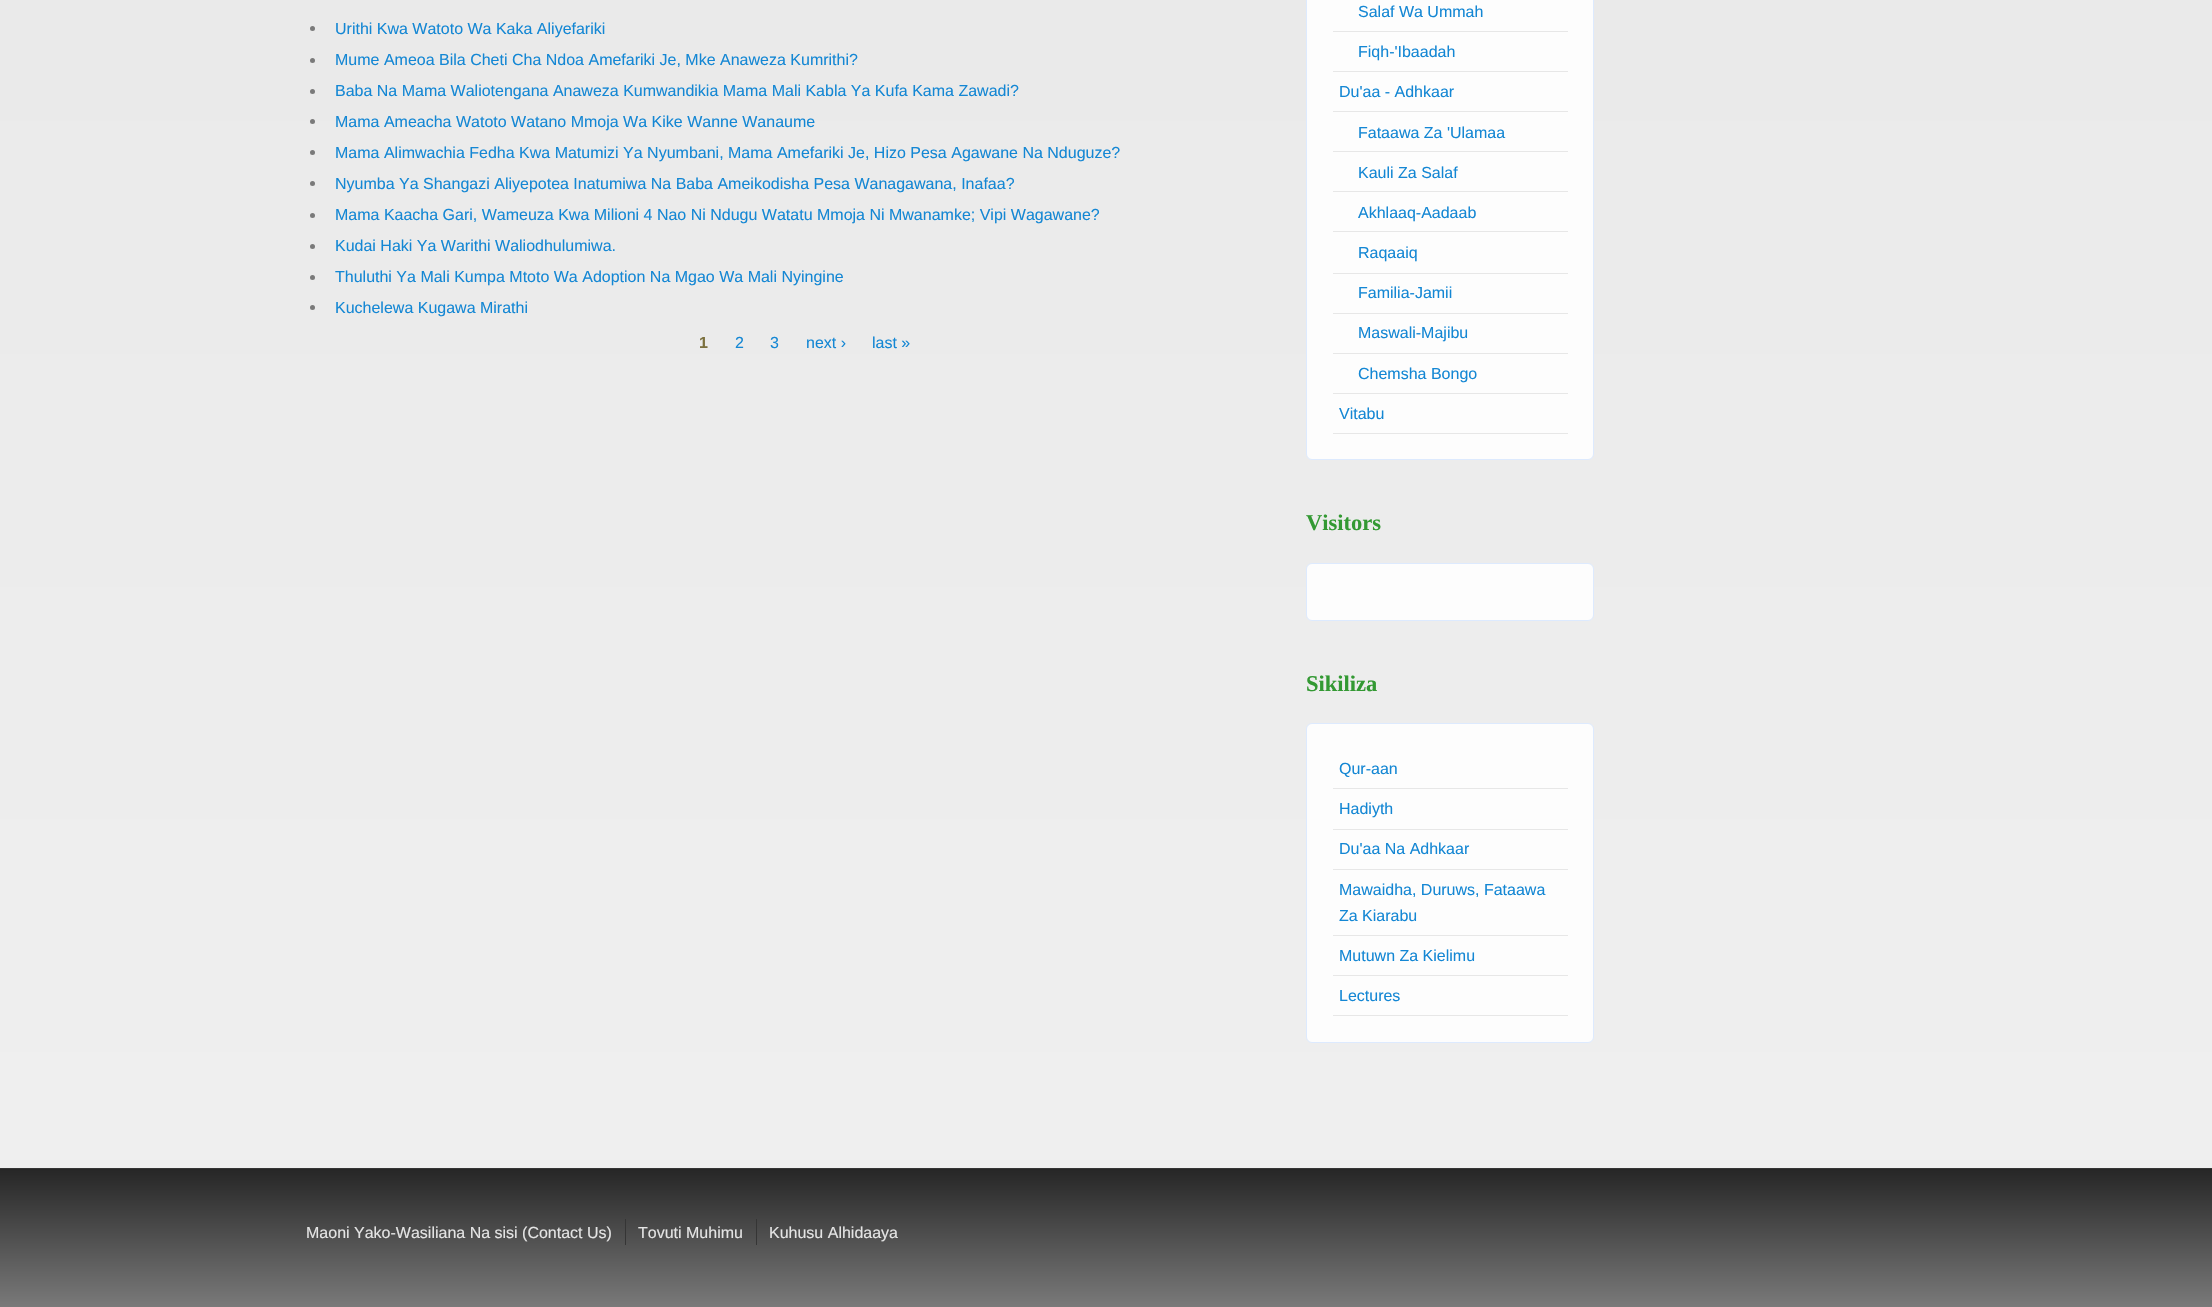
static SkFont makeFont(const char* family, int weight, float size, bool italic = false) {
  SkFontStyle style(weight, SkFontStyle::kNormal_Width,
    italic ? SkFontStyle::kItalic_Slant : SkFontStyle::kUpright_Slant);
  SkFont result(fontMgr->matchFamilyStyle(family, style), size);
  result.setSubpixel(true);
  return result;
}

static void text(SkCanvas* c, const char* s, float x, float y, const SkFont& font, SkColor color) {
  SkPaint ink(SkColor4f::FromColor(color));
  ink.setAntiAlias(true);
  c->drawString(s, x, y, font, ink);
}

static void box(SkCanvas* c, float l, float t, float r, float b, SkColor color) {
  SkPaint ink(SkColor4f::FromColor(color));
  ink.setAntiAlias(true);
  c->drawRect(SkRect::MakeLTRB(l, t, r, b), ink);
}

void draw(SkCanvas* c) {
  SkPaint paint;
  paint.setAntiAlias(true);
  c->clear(0xffffffff);
  {
    const SkColor colors[] = {0xffe8e8e8, 0xffefefef};
    const float stops[] = {0, 1};
    const SkPoint ends[] = {{1106, -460}, {1106, 1168}};
    paint.setShader(SkGradientShader::MakeLinear(ends, colors, stops, 2, SkTileMode::kClamp));
    paint.setAlpha(255);
  }
  c->drawRect(SkRect::MakeLTRB(0, 0, 2212, 1168), paint);
  paint.setShader(nullptr);
  paint.setColor(0xff7a7a7a);
  c->drawCircle(312.5f, 28.5f, 2.5f, paint);
  SkFont face1 = makeFont("Liberation Sans", 400, 16);
  text(c, "Urithi Kwa Watoto Wa Kaka Aliyefariki", 335, 34, face1, 0xff1487d4);
  c->drawCircle(312.5f, 60.5f, 2.5f, paint);
  text(c, "Mume Ameoa Bila Cheti Cha Ndoa Amefariki Je, Mke Anaweza Kumrithi?", 335, 65, face1, 0xff1487d4);
  c->drawCircle(312.5f, 91.5f, 2.5f, paint);
  text(c, "Baba Na Mama Waliotengana Anaweza Kumwandikia Mama Mali Kabla Ya Kufa Kama Zawadi?", 335, 96, face1, 0xff1487d4);
  c->drawCircle(312.5f, 121.5f, 2.5f, paint);
  text(c, "Mama Ameacha Watoto Watano Mmoja Wa Kike Wanne Wanaume", 335, 127, face1, 0xff1487d4);
  c->drawCircle(312.5f, 152.5f, 2.5f, paint);
  text(c, "Mama Alimwachia Fedha Kwa Matumizi Ya Nyumbani, Mama Amefariki Je, Hizo Pesa Agawane Na Nduguze?", 335, 158, face1, 0xff1487d4);
  c->drawCircle(312.5f, 183.5f, 2.5f, paint);
  text(c, "Nyumba Ya Shangazi Aliyepotea Inatumiwa Na Baba Ameikodisha Pesa Wanagawana, Inafaa?", 335, 189, face1, 0xff1487d4);
  c->drawCircle(312.5f, 215.5f, 2.5f, paint);
  text(c, "Mama Kaacha Gari, Wameuza Kwa Milioni 4 Nao Ni Ndugu Watatu Mmoja Ni Mwanamke; Vipi Wagawane?", 335, 220, face1, 0xff1487d4);
  c->drawCircle(312.5f, 246.5f, 2.5f, paint);
  text(c, "Kudai Haki Ya Warithi Waliodhulumiwa.", 335, 251, face1, 0xff1487d4);
  c->drawCircle(312.5f, 277.5f, 2.5f, paint);
  text(c, "Thuluthi Ya Mali Kumpa Mtoto Wa Adoption Na Mgao Wa Mali Nyingine", 335, 282, face1, 0xff1487d4);
  c->drawCircle(312.5f, 307.5f, 2.5f, paint);
  text(c, "Kuchelewa Kugawa Mirathi", 335, 313, face1, 0xff1487d4);
  SkFont face2 = makeFont("Liberation Sans", 700, 16);
  text(c, "1", 699, 348, face2, 0xff7c713f);
  text(c, "2", 735, 348, face1, 0xff1487d4);
  text(c, "3", 770, 348, face1, 0xff1487d4);
  text(c, "next ›", 806, 348, face1, 0xff1487d4);
  text(c, "last »", 872, 348, face1, 0xff1487d4);
  paint.setColor(0xfffdfdfd);
  c->drawRoundRect(SkRect::MakeLTRB(1306.5f, -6.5f, 1593.5f, 459.5f), 5.5f, 5.5f, paint);
  paint.setStyle(SkPaint::kStroke_Style);
  paint.setStrokeWidth(1);
  paint.setColor(0xffddeafe);
  c->drawRoundRect(SkRect::MakeLTRB(1306.5f, -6.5f, 1593.5f, 459.5f), 5.5f, 5.5f, paint);
  box(c, 1333, 31, 1568, 32, 0xffe7e7e7);
  text(c, "Salaf Wa Ummah", 1358, 17, face1, 0xff1487d4);
  box(c, 1333, 71, 1568, 72, 0xffe7e7e7);
  text(c, "Fiqh-'Ibaadah", 1358, 57, face1, 0xff1487d4);
  box(c, 1333, 111, 1568, 112, 0xffe7e7e7);
  text(c, "Du'aa - Adhkaar", 1339, 97, face1, 0xff1487d4);
  box(c, 1333, 151, 1568, 152, 0xffe7e7e7);
  text(c, "Fataawa Za 'Ulamaa", 1358, 138, face1, 0xff1487d4);
  box(c, 1333, 191, 1568, 192, 0xffe7e7e7);
  text(c, "Kauli Za Salaf", 1358, 178, face1, 0xff1487d4);
  box(c, 1333, 231, 1568, 232, 0xffe7e7e7);
  text(c, "Akhlaaq-Aadaab", 1358, 218, face1, 0xff1487d4);
  box(c, 1333, 273, 1568, 274, 0xffe7e7e7);
  text(c, "Raqaaiq", 1358, 258, face1, 0xff1487d4);
  box(c, 1333, 313, 1568, 314, 0xffe7e7e7);
  text(c, "Familia-Jamii", 1358, 298, face1, 0xff1487d4);
  box(c, 1333, 353, 1568, 354, 0xffe7e7e7);
  text(c, "Maswali-Majibu", 1358, 338, face1, 0xff1487d4);
  box(c, 1333, 393, 1568, 394, 0xffe7e7e7);
  text(c, "Chemsha Bongo", 1358, 379, face1, 0xff1487d4);
  box(c, 1333, 433, 1568, 434, 0xffe7e7e7);
  text(c, "Vitabu", 1339, 419, face1, 0xff1487d4);
  SkFont face3 = makeFont("Liberation Serif", 700, 22.5f);
  text(c, "Visitors", 1306, 530, face3, 0xff339933);
  paint.setStyle(SkPaint::kFill_Style);
  paint.setColor(0xfffdfdfd);
  c->drawRoundRect(SkRect::MakeLTRB(1306.5f, 563.5f, 1593.5f, 620.5f), 5.5f, 5.5f, paint);
  paint.setStyle(SkPaint::kStroke_Style);
  paint.setColor(0xffddeafe);
  c->drawRoundRect(SkRect::MakeLTRB(1306.5f, 563.5f, 1593.5f, 620.5f), 5.5f, 5.5f, paint);
  text(c, "Sikiliza", 1306, 691, face3, 0xff339933);
  paint.setStyle(SkPaint::kFill_Style);
  paint.setColor(0xfffdfdfd);
  c->drawRoundRect(SkRect::MakeLTRB(1306.5f, 723.5f, 1593.5f, 1042.5f), 5.5f, 5.5f, paint);
  paint.setStyle(SkPaint::kStroke_Style);
  paint.setColor(0xffddeafe);
  c->drawRoundRect(SkRect::MakeLTRB(1306.5f, 723.5f, 1593.5f, 1042.5f), 5.5f, 5.5f, paint);
  box(c, 1333, 788, 1568, 789, 0xffe7e7e7);
  text(c, "Qur-aan", 1339, 774, face1, 0xff1487d4);
  box(c, 1333, 829, 1568, 830, 0xffe7e7e7);
  text(c, "Hadiyth", 1339, 814, face1, 0xff1487d4);
  box(c, 1333, 869, 1568, 870, 0xffe7e7e7);
  text(c, "Du'aa Na Adhkaar", 1339, 854, face1, 0xff1487d4);
  box(c, 1333, 935, 1568, 936, 0xffe7e7e7);
  text(c, "Mawaidha, Duruws, Fataawa", 1339, 895, face1, 0xff1487d4);
  text(c, "Za Kiarabu", 1339, 921, face1, 0xff1487d4);
  box(c, 1333, 975, 1568, 976, 0xffe7e7e7);
  text(c, "Mutuwn Za Kielimu", 1339, 961, face1, 0xff1487d4);
  box(c, 1333, 1015, 1568, 1016, 0xffe7e7e7);
  text(c, "Lectures", 1339, 1001, face1, 0xff1487d4);
  paint.setStyle(SkPaint::kFill_Style);
  {
    const SkColor colors[] = {0xff262626, 0xff7a7a7a};
    const float stops[] = {0, 1};
    const SkPoint ends[] = {{1106, 1169}, {1106, 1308}};
    paint.setShader(SkGradientShader::MakeLinear(ends, colors, stops, 2, SkTileMode::kClamp));
    paint.setAlpha(255);
  }
  c->drawRect(SkRect::MakeLTRB(0, 1169, 2212, 1307), paint);
  box(c, 0, 1168, 2212, 1169, 0xff353535);
  box(c, 625, 1219, 626, 1245, 0xff353535);
  text(c, "Maoni Yako-Wasiliana Na sisi (Contact Us)", 306, 1238, face1, 0xffe4e4e4);
  box(c, 756, 1219, 757, 1245, 0xff353535);
  text(c, "Tovuti Muhimu", 638, 1238, face1, 0xffe4e4e4);
  text(c, "Kuhusu Alhidaaya", 769, 1238, face1, 0xffe4e4e4);
}
